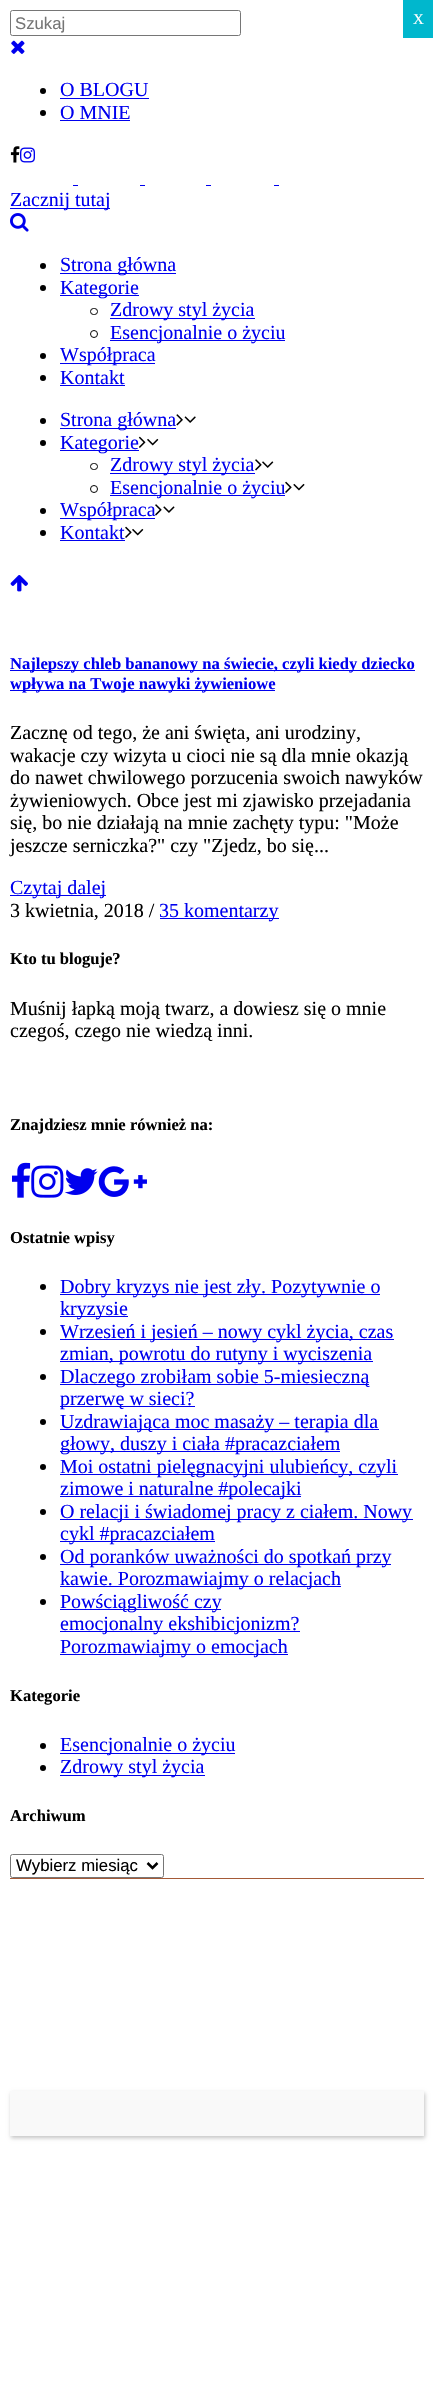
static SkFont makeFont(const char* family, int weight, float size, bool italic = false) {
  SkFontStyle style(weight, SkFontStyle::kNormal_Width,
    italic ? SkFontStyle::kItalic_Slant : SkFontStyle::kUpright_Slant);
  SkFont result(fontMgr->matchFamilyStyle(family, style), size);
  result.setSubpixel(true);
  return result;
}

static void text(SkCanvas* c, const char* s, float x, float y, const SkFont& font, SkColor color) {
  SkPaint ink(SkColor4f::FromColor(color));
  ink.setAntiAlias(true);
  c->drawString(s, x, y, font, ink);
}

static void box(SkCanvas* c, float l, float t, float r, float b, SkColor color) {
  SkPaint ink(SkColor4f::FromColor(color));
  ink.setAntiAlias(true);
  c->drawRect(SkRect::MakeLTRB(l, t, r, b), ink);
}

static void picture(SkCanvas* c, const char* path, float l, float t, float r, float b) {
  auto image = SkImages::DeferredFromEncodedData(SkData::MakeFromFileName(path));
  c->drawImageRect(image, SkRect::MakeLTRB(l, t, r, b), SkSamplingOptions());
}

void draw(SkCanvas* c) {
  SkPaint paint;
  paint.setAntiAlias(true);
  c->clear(0xffffffff);
  paint.setColor(0x3b020202);
  paint.setMaskFilter(SkMaskFilter::MakeBlur(kNormal_SkBlurStyle, 2));
  c->drawRect(SkRect::MakeLTRB(11, 2093, 425, 2138), paint);
  paint.setMaskFilter(nullptr);
  box(c, 10, 2091, 424, 2136, 0xfff9f9f9);
  box(c, 403, 0, 433, 38, 0xff00b7cd);
  SkFont face1 = makeFont("Liberation Serif", 400, 15);
  text(c, "X", 413, 24, face1, 0xffffffff);
  paint.setStyle(SkPaint::kStroke_Style);
  paint.setStrokeWidth(1);
  paint.setColor(0xff767676);
  c->drawRoundRect(SkRect::MakeLTRB(10.5f, 10.5f, 240.5f, 35.5f), 2, 2, paint);
  SkFont face2 = makeFont("Liberation Sans", 400, 16.75f);
  text(c, "Szukaj", 15, 29, face2, 0xff757575);
  picture(c, "img_01.png", 11, 40, 25, 54);
  paint.setStyle(SkPaint::kFill_Style);
  paint.setColor(0xff000000);
  c->drawCircle(43, 91, 3, paint);
  SkFont face3 = makeFont("Liberation Serif", 400, 20);
  text(c, "O BLOGU", 60, 96, face3, 0xff0000ee);
  box(c, 60, 98, 149, 99, 0xff0000ee);
  c->drawCircle(43, 113, 3, paint);
  text(c, "O MNIE", 60, 119, face3, 0xff0000ee);
  box(c, 60, 120, 130, 121, 0xff0000ee);
  picture(c, "img_02.png", 10, 146, 20, 163);
  picture(c, "img_03.png", 20, 147, 35, 163);
  box(c, 73, 185, 78, 186, 0xff0000ee);
  box(c, 140, 185, 145, 186, 0xff0000ee);
  box(c, 206, 185, 211, 186, 0xff0000ee);
  box(c, 274, 185, 279, 186, 0xff0000ee);
  box(c, 10, 208, 110, 209, 0xff0000ee);
  text(c, "Zacznij tutaj", 10, 206, face3, 0xff0000ee);
  picture(c, "img_04.png", 10, 213, 29, 232);
  c->drawCircle(43, 266, 3, paint);
  box(c, 60, 273, 176, 274, 0xff0000ee);
  text(c, "Strona główna", 60, 271, face3, 0xff0000ee);
  c->drawCircle(43, 288, 3, paint);
  box(c, 60, 295, 139, 296, 0xff0000ee);
  text(c, "Kategorie", 60, 294, face3, 0xff0000ee);
  paint.setStyle(SkPaint::kStroke_Style);
  c->drawRoundRect(SkRect::MakeLTRB(90.5f, 308.5f, 97.5f, 314.5f), 3, 3, paint);
  box(c, 110, 318, 255, 319, 0xff0000ee);
  text(c, "Zdrowy styl życia", 110, 316, face3, 0xff0000ee);
  c->drawCircle(94, 334, 3.5f, paint);
  box(c, 110, 340, 285, 341, 0xff0000ee);
  text(c, "Esencjonalnie o życiu", 110, 339, face3, 0xff0000ee);
  paint.setStyle(SkPaint::kFill_Style);
  c->drawCircle(43, 356, 3, paint);
  box(c, 60, 363, 155, 364, 0xff0000ee);
  text(c, "Współpraca", 60, 361, face3, 0xff0000ee);
  c->drawCircle(43, 378, 3, paint);
  text(c, "Kontakt", 60, 384, face3, 0xff0000ee);
  box(c, 60, 385, 125, 386, 0xff0000ee);
  c->drawCircle(43, 421, 3, paint);
  box(c, 60, 428, 176, 429, 0xff0000ee);
  text(c, "Strona główna", 60, 426, face3, 0xff0000ee);
  picture(c, "img_05.png", 176, 414, 183, 426);
  picture(c, "img_06.png", 184, 416, 196, 423);
  c->drawCircle(43, 443, 3, paint);
  box(c, 60, 450, 139, 451, 0xff0000ee);
  text(c, "Kategorie", 60, 449, face3, 0xff0000ee);
  picture(c, "img_07.png", 138, 436, 146, 448);
  picture(c, "img_08.png", 147, 438, 159, 446);
  paint.setStyle(SkPaint::kStroke_Style);
  c->drawRoundRect(SkRect::MakeLTRB(90.5f, 463.5f, 97.5f, 469.5f), 3, 3, paint);
  box(c, 110, 473, 255, 474, 0xff0000ee);
  text(c, "Zdrowy styl życia", 110, 471, face3, 0xff0000ee);
  picture(c, "img_09.png", 255, 459, 262, 471);
  picture(c, "img_10.png", 262, 461, 274, 468);
  c->drawCircle(94, 489, 3.5f, paint);
  box(c, 110, 495, 285, 496, 0xff0000ee);
  text(c, "Esencjonalnie o życiu", 110, 494, face3, 0xff0000ee);
  picture(c, "img_11.png", 285, 481, 292, 493);
  picture(c, "img_12.png", 293, 483, 305, 491);
  paint.setStyle(SkPaint::kFill_Style);
  c->drawCircle(43, 511, 3, paint);
  box(c, 60, 518, 155, 519, 0xff0000ee);
  text(c, "Współpraca", 60, 516, face3, 0xff0000ee);
  picture(c, "img_13.png", 155, 504, 162, 516);
  picture(c, "img_14.png", 163, 506, 175, 513);
  c->drawCircle(43, 533, 3, paint);
  text(c, "Kontakt", 60, 539, face3, 0xff0000ee);
  box(c, 60, 540, 125, 541, 0xff0000ee);
  picture(c, "img_11.png", 125, 526, 132, 538);
  picture(c, "img_08.png", 132, 528, 144, 536);
  picture(c, "img_15.png", 10, 575, 28, 592);
  box(c, 10, 670, 415, 671, 0xff0000ee);
  SkFont face4 = makeFont("Liberation Serif", 700, 16.6f);
  text(c, "Najlepszy chleb bananowy na świecie, czyli kiedy dziecko", 10, 669, face4, 0xff0000ee);
  box(c, 10, 690, 275, 691, 0xff0000ee);
  text(c, "wpływa na Twoje nawyki żywieniowe", 10, 689, face4, 0xff0000ee);
  text(c, "Zacznę od tego, że ani święta, ani urodziny,", 10, 739, face3, 0xff000000);
  text(c, "wakacje czy wizyta u cioci nie są dla mnie okazją", 10, 762, face3, 0xff000000);
  text(c, "do nawet chwilowego porzucenia swoich nawyków", 10, 784, face3, 0xff000000);
  text(c, "żywieniowych. Obce jest mi zjawisko przejadania", 10, 807, face3, 0xff000000);
  text(c, "się, bo nie działają na mnie zachęty typu: \"Może", 10, 829, face3, 0xff000000);
  text(c, "jeszcze serniczka?\" czy \"Zjedz, bo się...", 10, 852, face3, 0xff000000);
  box(c, 10, 895, 106, 896, 0xff0000ee);
  text(c, "Czytaj dalej", 10, 894, face3, 0xff0000ee);
  text(c, "3 kwietnia, 2018 /", 10, 917, face3, 0xff000000);
  box(c, 160, 918, 279, 919, 0xff0000ee);
  text(c, "35 komentarzy", 159, 917, face3, 0xff0000ee);
  text(c, "Kto tu bloguje?", 10, 964, face4, 0xff000000);
  text(c, "Muśnij łapką moją twarz, a dowiesz się o mnie", 10, 1015, face3, 0xff000000);
  text(c, "czegoś, czego nie wiedzą inni.", 10, 1037, face3, 0xff000000);
  text(c, "Znajdziesz mnie również na:", 10, 1130, face4, 0xff000000);
  picture(c, "img_16.png", 12, 1162, 31, 1198);
  picture(c, "img_17.png", 31, 1165, 64, 1198);
  picture(c, "img_18.png", 65, 1168, 98, 1195);
  picture(c, "img_19.png", 98, 1166, 147, 1197);
  text(c, "Ostatnie wpisy", 10, 1243, face4, 0xff000000);
  c->drawCircle(43, 1287, 3, paint);
  box(c, 60, 1294, 380, 1295, 0xff0000ee);
  text(c, "Dobry kryzys nie jest zły. Pozytywnie o", 60, 1293, face3, 0xff0000ee);
  box(c, 60, 1316, 128, 1317, 0xff0000ee);
  text(c, "kryzysie", 60, 1315, face3, 0xff0000ee);
  c->drawCircle(43, 1332, 3, paint);
  box(c, 60, 1339, 394, 1340, 0xff0000ee);
  text(c, "Wrzesień i jesień – nowy cykl życia, czas", 60, 1338, face3, 0xff0000ee);
  box(c, 60, 1361, 373, 1362, 0xff0000ee);
  text(c, "zmian, powrotu do rutyny i wyciszenia", 60, 1360, face3, 0xff0000ee);
  c->drawCircle(43, 1377, 3, paint);
  box(c, 60, 1384, 369, 1385, 0xff0000ee);
  text(c, "Dlaczego zrobiłam sobie 5-miesieczną", 60, 1383, face3, 0xff0000ee);
  box(c, 60, 1406, 195, 1407, 0xff0000ee);
  text(c, "przerwę w sieci?", 60, 1405, face3, 0xff0000ee);
  c->drawCircle(43, 1422, 3, paint);
  box(c, 60, 1429, 379, 1430, 0xff0000ee);
  text(c, "Uzdrawiająca moc masaży – terapia dla", 60, 1428, face3, 0xff0000ee);
  box(c, 60, 1451, 340, 1452, 0xff0000ee);
  text(c, "głowy, duszy i ciała #pracazciałem", 60, 1450, face3, 0xff0000ee);
  c->drawCircle(43, 1467, 3, paint);
  box(c, 60, 1474, 398, 1475, 0xff0000ee);
  text(c, "Moi ostatni pielęgnacyjni ulubieńcy, czyli", 60, 1473, face3, 0xff0000ee);
  box(c, 60, 1496, 301, 1497, 0xff0000ee);
  text(c, "zimowe i naturalne #polecajki", 60, 1495, face3, 0xff0000ee);
  c->drawCircle(43, 1512, 3, paint);
  box(c, 60, 1519, 413, 1520, 0xff0000ee);
  text(c, "O relacji i świadomej pracy z ciałem. Nowy", 60, 1518, face3, 0xff0000ee);
  box(c, 60, 1541, 215, 1542, 0xff0000ee);
  text(c, "cykl #pracazciałem", 60, 1540, face3, 0xff0000ee);
  c->drawCircle(43, 1557, 3, paint);
  box(c, 60, 1564, 391, 1565, 0xff0000ee);
  text(c, "Od poranków uważności do spotkań przy", 60, 1563, face3, 0xff0000ee);
  box(c, 60, 1586, 341, 1587, 0xff0000ee);
  text(c, "kawie. Porozmawiajmy o relacjach", 60, 1585, face3, 0xff0000ee);
  c->drawCircle(43, 1602, 3, paint);
  box(c, 60, 1609, 221, 1610, 0xff0000ee);
  text(c, "Powściągliwość czy", 60, 1608, face3, 0xff0000ee);
  box(c, 60, 1631, 300, 1632, 0xff0000ee);
  text(c, "emocjonalny ekshibicjonizm?", 60, 1630, face3, 0xff0000ee);
  box(c, 60, 1654, 288, 1655, 0xff0000ee);
  text(c, "Porozmawiajmy o emocjach", 60, 1653, face3, 0xff0000ee);
  text(c, "Kategorie", 10, 1701, face4, 0xff000000);
  c->drawCircle(43, 1746, 3, paint);
  box(c, 60, 1753, 235, 1754, 0xff0000ee);
  text(c, "Esencjonalnie o życiu", 60, 1751, face3, 0xff0000ee);
  c->drawCircle(43, 1768, 3, paint);
  box(c, 60, 1775, 205, 1776, 0xff0000ee);
  text(c, "Zdrowy styl życia", 60, 1773, face3, 0xff0000ee);
  text(c, "Archiwum", 10, 1821, face4, 0xff000000);
  paint.setStyle(SkPaint::kStroke_Style);
  paint.setColor(0xff767676);
  c->drawRoundRect(SkRect::MakeLTRB(10.5f, 1854.5f, 163.5f, 1877.5f), 2, 2, paint);
  paint.setStrokeWidth(2.5f);
  paint.setColor(0xff000000);
  c->drawPath(SkPathBuilder().moveTo(147.5f, 1863).lineTo(152.5f, 1868).lineTo(157.5f, 1863).detach(), paint);
  text(c, "Wybierz miesiąc", 16, 1871, face2, 0xff000000);
  box(c, 10, 1878, 424, 1879, 0xffa55a37);
}
